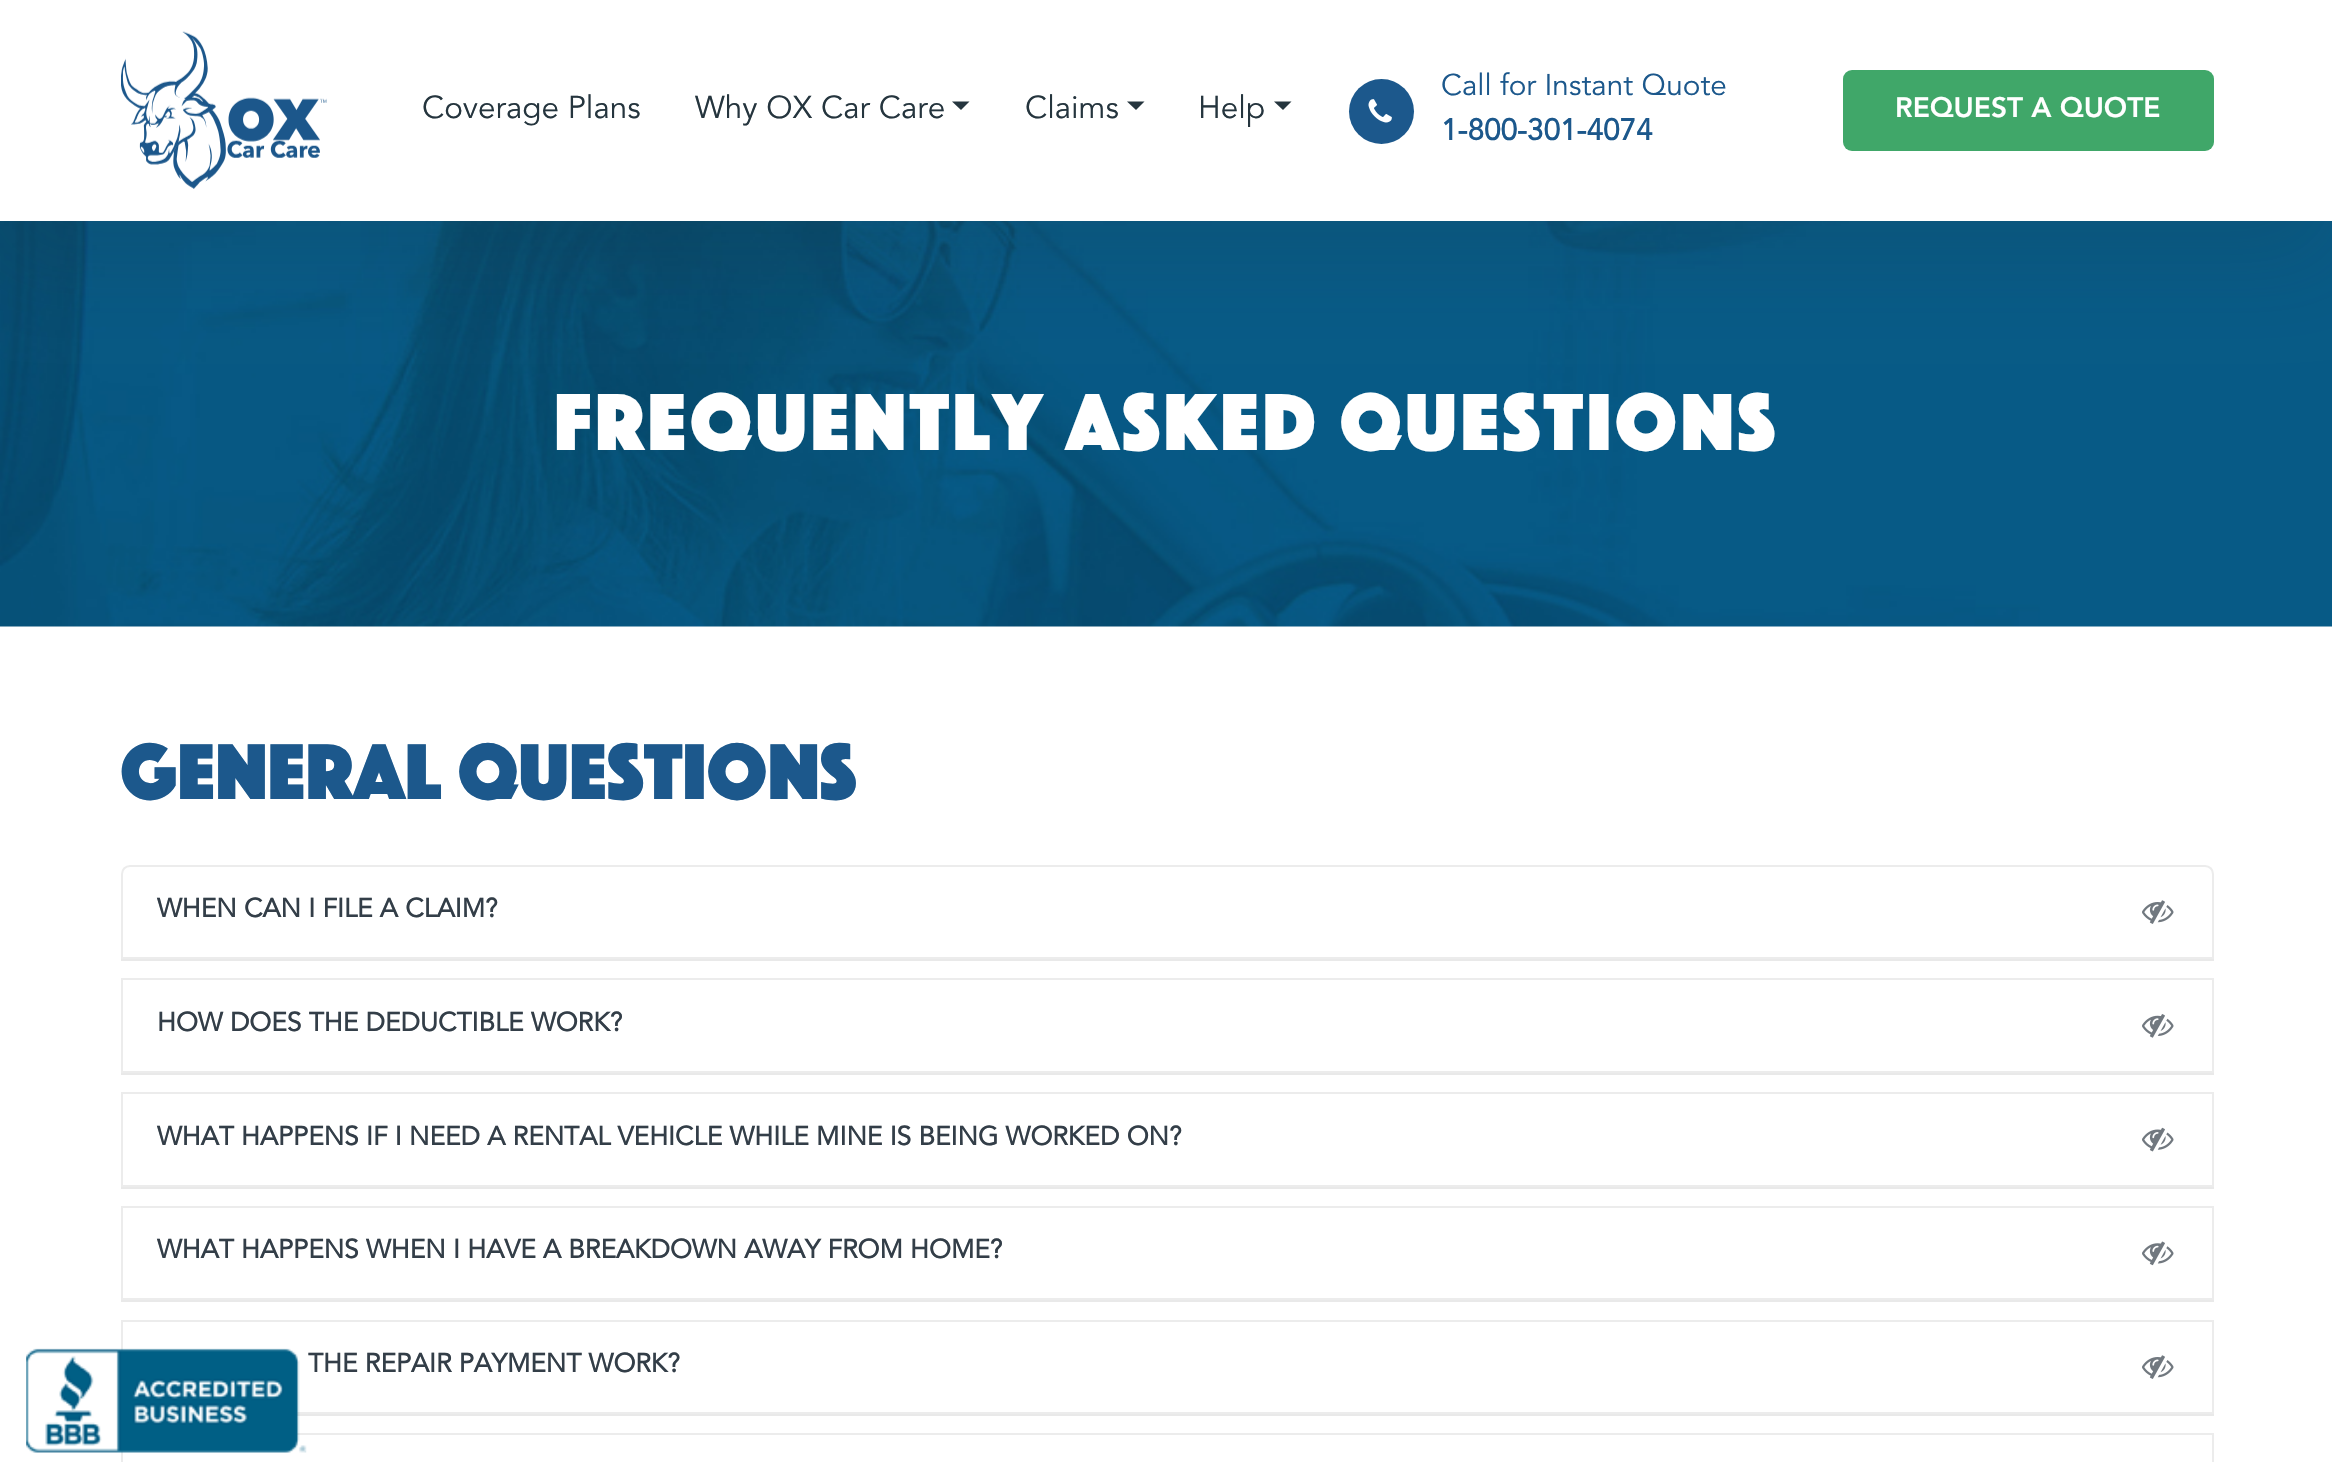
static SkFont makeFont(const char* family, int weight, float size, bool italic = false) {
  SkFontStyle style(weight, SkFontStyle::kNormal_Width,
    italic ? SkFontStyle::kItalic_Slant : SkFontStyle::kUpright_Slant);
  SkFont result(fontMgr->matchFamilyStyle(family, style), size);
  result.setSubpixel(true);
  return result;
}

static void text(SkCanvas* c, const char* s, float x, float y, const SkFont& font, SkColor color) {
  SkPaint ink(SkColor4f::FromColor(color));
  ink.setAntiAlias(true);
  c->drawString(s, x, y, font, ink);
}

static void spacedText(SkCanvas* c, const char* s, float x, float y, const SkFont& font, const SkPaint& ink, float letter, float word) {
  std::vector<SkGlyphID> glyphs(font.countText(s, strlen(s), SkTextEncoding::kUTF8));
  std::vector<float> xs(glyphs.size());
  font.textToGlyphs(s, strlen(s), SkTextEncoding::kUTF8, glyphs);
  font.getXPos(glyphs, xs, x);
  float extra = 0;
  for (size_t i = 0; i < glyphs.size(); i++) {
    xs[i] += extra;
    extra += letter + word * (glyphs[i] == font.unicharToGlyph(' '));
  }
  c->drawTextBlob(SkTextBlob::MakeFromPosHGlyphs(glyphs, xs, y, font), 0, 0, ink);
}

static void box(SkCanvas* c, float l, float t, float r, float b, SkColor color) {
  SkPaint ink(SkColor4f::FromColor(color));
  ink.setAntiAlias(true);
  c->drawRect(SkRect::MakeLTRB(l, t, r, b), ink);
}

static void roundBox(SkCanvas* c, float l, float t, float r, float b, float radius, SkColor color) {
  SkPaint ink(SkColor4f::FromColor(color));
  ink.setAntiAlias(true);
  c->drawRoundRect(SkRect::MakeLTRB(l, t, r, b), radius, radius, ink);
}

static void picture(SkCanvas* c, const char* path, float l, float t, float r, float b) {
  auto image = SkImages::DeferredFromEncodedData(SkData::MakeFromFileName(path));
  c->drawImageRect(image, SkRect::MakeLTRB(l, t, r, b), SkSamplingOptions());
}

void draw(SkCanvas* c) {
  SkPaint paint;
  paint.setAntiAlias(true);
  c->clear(0xffffffff);
  picture(c, "img_03.png", 0, 221, 2332, 627);
  paint.setColor(0x2621363d);
  paint.setMaskFilter(SkMaskFilter::MakeBlur(kNormal_SkBlurStyle, 43));
  c->drawRect(SkRect::MakeLTRB(0, 40, 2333, 261), paint);
  paint.setMaskFilter(nullptr);
  box(c, 0, 0, 2332, 221, 0xffffffff);
  picture(c, "img_01.png", 121, 31, 327, 189);
  SkFont face1 = makeFont("Avenir", 400, 31.5f);
  text(c, "Coverage Plans", 422, 118, face1, 0xff25353e);
  text(c, "Why OX Car Care", 695, 118, face1, 0xff25353e);
  paint.setColor(0xff25353e);
  c->drawPath(SkPathBuilder().moveTo(952, 101.5f).lineTo(969.5f, 101.5f).lineTo(961, 110).close().detach(), paint);
  text(c, "Claims", 1025, 118, face1, 0xff25353e);
  c->drawPath(SkPathBuilder().moveTo(1127, 101.5f).lineTo(1144.5f, 101.5f).lineTo(1136, 110).close().detach(), paint);
  text(c, "Help", 1198, 118, face1, 0xff25353e);
  c->drawPath(SkPathBuilder().moveTo(1274, 101.5f).lineTo(1291.5f, 101.5f).lineTo(1283, 110).close().detach(), paint);
  paint.setColor(0xff1c588c);
  c->drawCircle(1381.5f, 111.5f, 32.5f, paint);
  picture(c, "img_02.png", 1368, 99, 1392, 123);
  SkFont face2 = makeFont("Avenir", 400, 29.75f);
  text(c, "Call for Instant Quote", 1441, 95, face2, 0xff1c588c);
  SkFont face3 = makeFont("Avenir", 700, 29.75f);
  text(c, "1-800-301-4074", 1441, 140, face3, 0xff1c588c);
  roundBox(c, 1843, 70, 2214, 151, 9, 0xff40a769);
  SkFont face4 = makeFont("Avenir", 900, 28);
  text(c, "REQUEST A QUOTE", 1895, 117, face4, 0xffffffff);
  SkFont face5 = makeFont("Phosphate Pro", 400, 84);
  paint.setColor(0xffffffff);
  spacedText(c, "Frequently Asked Questions", 554, 450, face5, paint, 3.5f, 0);
  SkFont face6 = makeFont("Phosphate Pro", 400, 82.25f);
  text(c, "General Questions", 120, 799, face6, 0xff1c588c);
  box(c, 121, 959, 2214, 961, 0xffe9e9e9);
  paint.setStyle(SkPaint::kStroke_Style);
  paint.setStrokeWidth(2);
  paint.setColor(0xffececec);
  c->drawPath(SkPathBuilder().moveTo(130, 866).lineTo(2205, 866).cubicTo(2209.5f, 866, 2213, 869.5f, 2213, 874).lineTo(2213, 958).lineTo(122, 958).lineTo(122, 874).cubicTo(122, 869.5f, 125.5f, 866, 130, 866).close().detach(), paint);
  SkFont face7 = makeFont("Avenir", 700, 26.25f);
  text(c, "WHEN CAN I FILE A CLAIM?", 157, 917, face7, 0xff333e48);
  picture(c, "img_04.png", 2142, 900, 2174, 924);
  box(c, 121, 1073, 2214, 1075, 0xffe9e9e9);
  c->drawRect(SkRect::MakeLTRB(122, 979, 2213, 1072), paint);
  text(c, "HOW DOES THE DEDUCTIBLE WORK?", 157, 1031, face7, 0xff333e48);
  picture(c, "img_05.png", 2142, 1014, 2174, 1038);
  box(c, 121, 1187, 2214, 1189, 0xffe9e9e9);
  c->drawRect(SkRect::MakeLTRB(122, 1093, 2213, 1186), paint);
  text(c, "WHAT HAPPENS IF I NEED A RENTAL VEHICLE WHILE MINE IS BEING WORKED ON?", 157, 1145, face7, 0xff333e48);
  picture(c, "img_06.png", 2142, 1127, 2174, 1152);
  box(c, 121, 1300, 2214, 1302, 0xffe9e9e9);
  c->drawRect(SkRect::MakeLTRB(122, 1207, 2213, 1299), paint);
  text(c, "WHAT HAPPENS WHEN I HAVE A BREAKDOWN AWAY FROM HOME?", 157, 1258, face7, 0xff333e48);
  picture(c, "img_07.png", 2142, 1241, 2174, 1266);
  box(c, 295, 1414, 2214, 1416, 0xffe9e9e9);
  c->drawRect(SkRect::MakeLTRB(122, 1321, 2213, 1413), paint);
  text(c, "THE REPAIR PAYMENT WORK?", 308, 1372, face7, 0xff333e48);
  picture(c, "img_08.png", 2142, 1355, 2174, 1379);
  c->drawRect(SkRect::MakeLTRB(122, 1434, 2213, 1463), paint);
  picture(c, "img_09.png", 26, 1348, 307, 1453);
}
